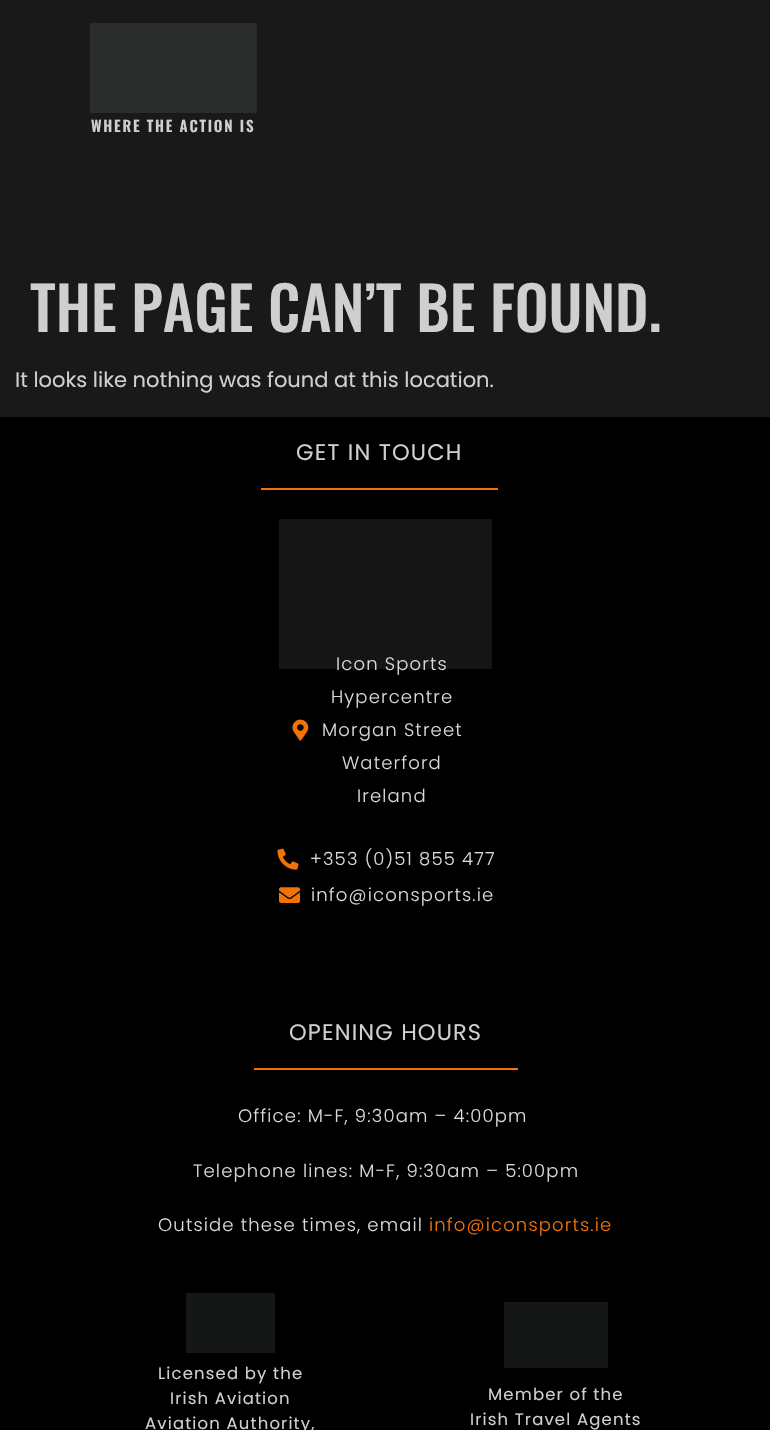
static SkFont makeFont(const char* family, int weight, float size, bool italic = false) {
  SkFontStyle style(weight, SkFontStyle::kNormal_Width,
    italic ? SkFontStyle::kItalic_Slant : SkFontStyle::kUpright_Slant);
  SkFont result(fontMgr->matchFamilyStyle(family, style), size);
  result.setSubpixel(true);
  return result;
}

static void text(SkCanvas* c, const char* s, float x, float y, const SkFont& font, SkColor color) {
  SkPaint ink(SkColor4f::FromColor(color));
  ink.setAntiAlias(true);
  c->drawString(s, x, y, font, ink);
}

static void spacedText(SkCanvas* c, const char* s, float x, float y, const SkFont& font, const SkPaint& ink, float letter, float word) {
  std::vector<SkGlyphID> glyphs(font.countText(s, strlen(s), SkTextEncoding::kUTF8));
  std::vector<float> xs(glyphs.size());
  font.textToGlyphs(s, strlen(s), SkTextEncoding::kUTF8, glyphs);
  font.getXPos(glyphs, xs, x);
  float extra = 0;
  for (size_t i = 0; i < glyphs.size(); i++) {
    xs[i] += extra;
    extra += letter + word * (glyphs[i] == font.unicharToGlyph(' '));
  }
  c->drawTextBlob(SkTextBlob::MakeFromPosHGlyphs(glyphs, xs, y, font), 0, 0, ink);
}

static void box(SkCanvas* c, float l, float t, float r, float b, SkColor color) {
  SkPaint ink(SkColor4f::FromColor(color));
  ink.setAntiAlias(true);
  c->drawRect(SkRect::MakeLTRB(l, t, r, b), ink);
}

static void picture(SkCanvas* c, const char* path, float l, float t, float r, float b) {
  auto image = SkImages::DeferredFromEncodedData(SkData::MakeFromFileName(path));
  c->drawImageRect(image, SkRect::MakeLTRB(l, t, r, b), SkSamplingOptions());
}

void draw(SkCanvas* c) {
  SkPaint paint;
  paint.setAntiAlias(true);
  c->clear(0xff191919);
  box(c, 90, 23, 257, 113, 0xff2b2c2c);
  SkFont face1 = makeFont("Oswald", 600, 15);
  paint.setColor(0xffcfcfcf);
  spacedText(c, "WHERE THE ACTION IS", 91, 132, face1, paint, 1.75f, 0);
  SkFont face2 = makeFont("Oswald", 500, 60);
  text(c, "THE PAGE CAN’T BE FOUND.", 30, 332, face2, 0xffcfcfcf);
  SkFont face3 = makeFont("Poppins", 400, 21);
  text(c, "It looks like nothing was found at this location.", 15, 387, face3, 0xffcfcfcf);
  box(c, 0, 417, 770, 1430, 0xff000000);
  box(c, 261, 488, 498, 490, 0xfff27305);
  SkFont face4 = makeFont("Poppins", 400, 22.5f);
  spacedText(c, "GET IN TOUCH", 296, 460, face4, paint, 1.15f, 0);
  box(c, 279, 519, 492, 669, 0xff151516);
  picture(c, "img_01.png", 292, 719, 309, 741);
  SkFont face5 = makeFont("Poppins", 300, 18);
  paint.setColor(0xffdadada);
  spacedText(c, "Icon Sports", 336, 670, face5, paint, 1.15f, 0);
  spacedText(c, "Hypercentre", 331, 703, face5, paint, 1.15f, 0);
  spacedText(c, "Morgan Street", 322, 736, face5, paint, 1.15f, 0);
  spacedText(c, "Waterford", 342, 769, face5, paint, 1.15f, 0);
  spacedText(c, "Ireland", 357, 802, face5, paint, 1.15f, 0);
  picture(c, "img_02.png", 277, 848, 299, 870);
  spacedText(c, "+353 (0)51 855 477", 310, 865, face5, paint, 1.15f, 0);
  picture(c, "img_03.png", 279, 887, 300, 903);
  spacedText(c, "info@iconsports.ie", 311, 901, face5, paint, 1.15f, 0);
  box(c, 254, 1068, 518, 1070, 0xfff27305);
  paint.setColor(0xffcfcfcf);
  spacedText(c, "OPENING HOURS", 289, 1040, face4, paint, 1.15f, 0);
  paint.setColor(0xffdadada);
  spacedText(c, "Office: M-F, 9:30am – 4:00pm", 238, 1122, face5, paint, 1.15f, 0);
  spacedText(c, "Telephone lines: M-F, 9:30am – 5:00pm", 193, 1177, face5, paint, 1.15f, 0);
  spacedText(c, "Outside these times, email", 158, 1231, face5, paint, 1.15f, 0);
  paint.setColor(0xfff27305);
  spacedText(c, "info@iconsports.ie", 429, 1231, face5, paint, 1.15f, 0);
  box(c, 186, 1293, 275, 1353, 0xff151616);
  SkFont face6 = makeFont("Poppins", 400, 16.5f);
  paint.setColor(0xffcfcfcf);
  spacedText(c, "Licensed by the", 158, 1379, face6, paint, 1.15f, 0);
  spacedText(c, "Irish Aviation", 170, 1404, face6, paint, 1.15f, 0);
  spacedText(c, "Aviation Authority,", 145, 1429, face6, paint, 1.15f, 0);
  box(c, 504, 1302, 608, 1368, 0xff151616);
  spacedText(c, "Member of the", 488, 1400, face6, paint, 1.15f, 0);
  spacedText(c, "Irish Travel Agents", 470, 1425, face6, paint, 1.15f, 0);
}
